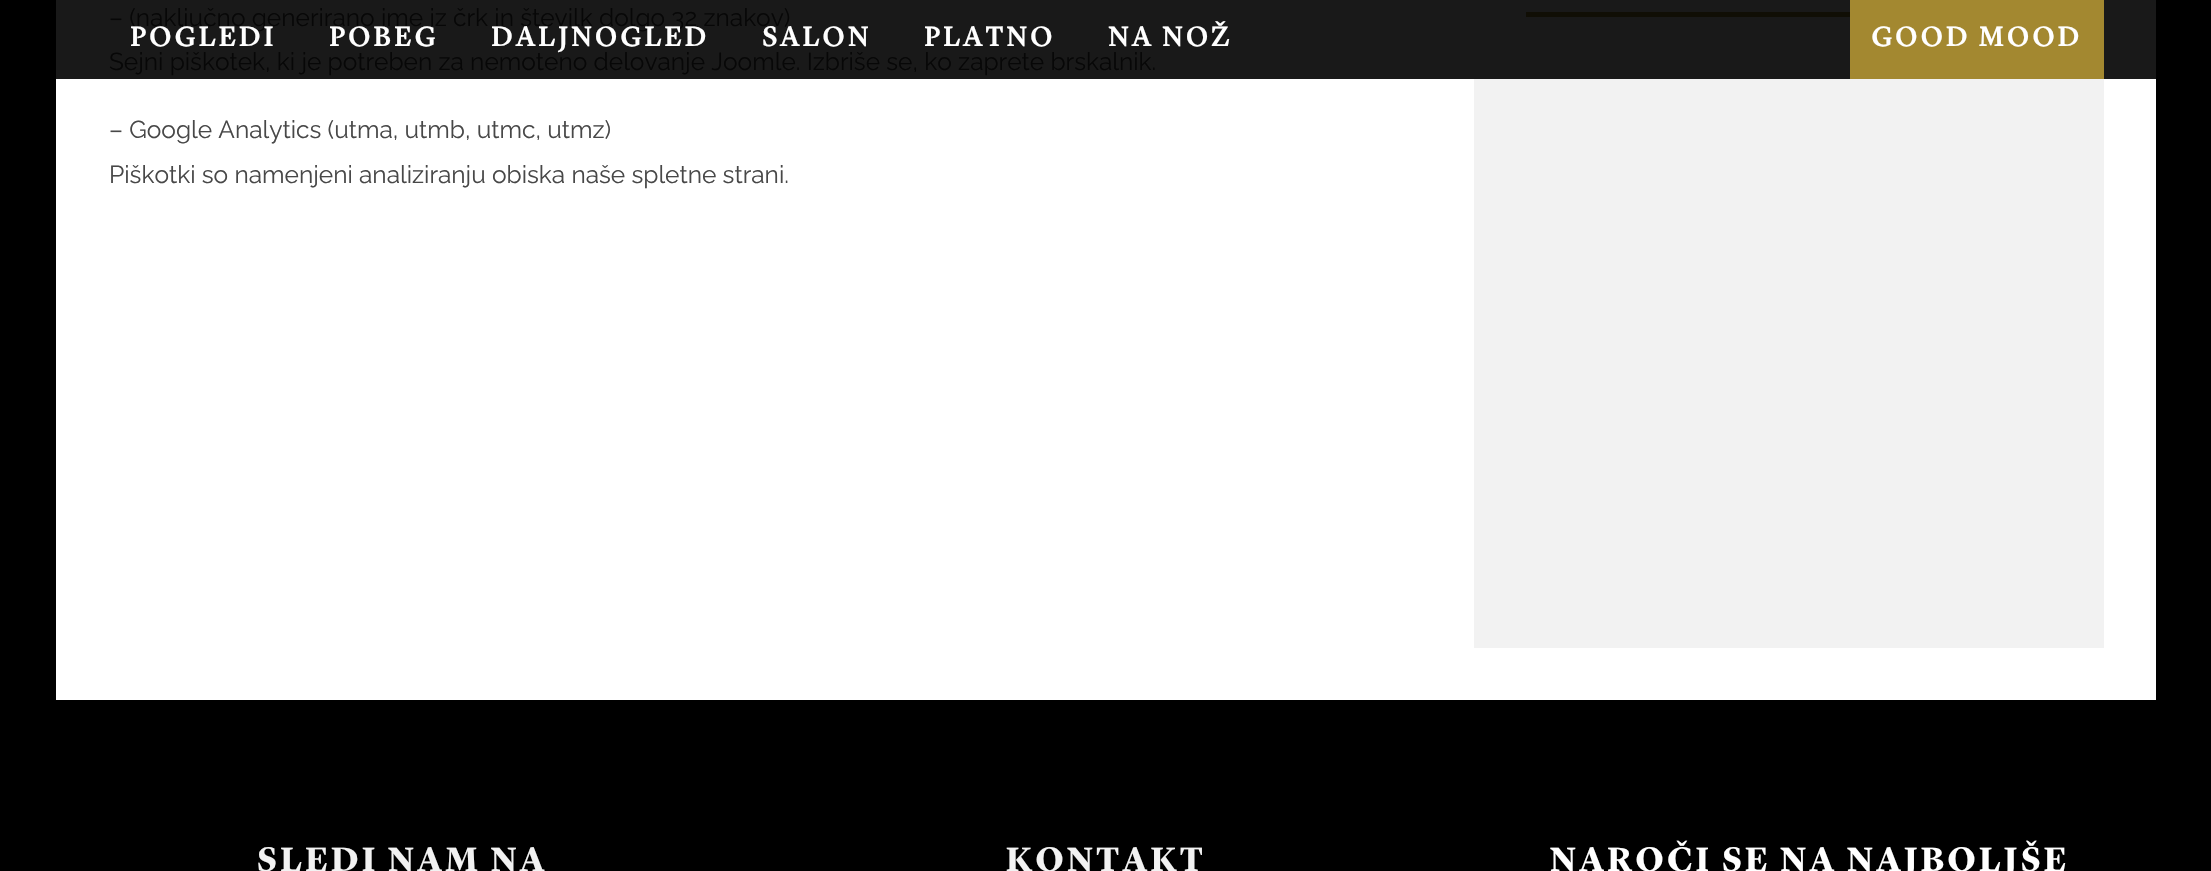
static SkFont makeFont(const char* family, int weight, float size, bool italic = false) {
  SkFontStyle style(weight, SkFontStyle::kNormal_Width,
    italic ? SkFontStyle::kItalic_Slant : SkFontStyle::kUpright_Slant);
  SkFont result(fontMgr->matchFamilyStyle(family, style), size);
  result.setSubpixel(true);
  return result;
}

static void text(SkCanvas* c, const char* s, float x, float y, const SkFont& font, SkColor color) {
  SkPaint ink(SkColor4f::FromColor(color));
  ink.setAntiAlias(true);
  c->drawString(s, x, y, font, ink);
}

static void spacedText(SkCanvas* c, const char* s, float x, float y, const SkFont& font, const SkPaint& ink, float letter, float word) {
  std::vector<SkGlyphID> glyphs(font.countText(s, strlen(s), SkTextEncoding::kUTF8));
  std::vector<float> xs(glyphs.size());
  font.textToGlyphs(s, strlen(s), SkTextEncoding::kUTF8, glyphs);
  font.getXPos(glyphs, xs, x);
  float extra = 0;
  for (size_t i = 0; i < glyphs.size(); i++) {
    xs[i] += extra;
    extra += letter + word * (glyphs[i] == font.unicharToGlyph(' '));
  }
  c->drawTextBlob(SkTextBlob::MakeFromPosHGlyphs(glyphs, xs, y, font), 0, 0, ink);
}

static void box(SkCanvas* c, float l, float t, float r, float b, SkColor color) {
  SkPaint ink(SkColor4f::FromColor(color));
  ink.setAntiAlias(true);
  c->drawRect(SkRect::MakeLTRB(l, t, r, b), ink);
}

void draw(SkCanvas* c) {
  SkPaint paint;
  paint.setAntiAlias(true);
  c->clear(0xff000000);
  box(c, 56, 79, 2156, 700, 0xffffffff);
  box(c, 56, 0, 2156, 79, 0xff191919);
  SkFont face1 = makeFont("Raleway", 400, 24.5f);
  text(c, "– (naključno generirano ime iz črk in številk dolgo 32 znakov)", 109, 26, face1, 0xff070707);
  text(c, "Sejni piškotek, ki je potreben za nemoteno delovanje Joomle. Izbriše se, ko zaprete brskalnik.", 109, 70, face1, 0xff070707);
  text(c, "– Google Analytics (utma, utmb, utmc, utmz)", 109, 138, face1, 0xff484848);
  text(c, "Piškotki so namenjeni analiziranju obiska naše spletne strani.", 109, 183, face1, 0xff484848);
  box(c, 1474, 79, 2104, 648, 0xfff2f2f2);
  box(c, 1526, 12, 1850, 17, 0xff100e05);
  SkFont face2 = makeFont("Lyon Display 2", 700, 28);
  paint.setColor(0xffffffff);
  spacedText(c, "POGLEDI", 130, 46, face2, paint, 3.5f, 0);
  spacedText(c, "POBEG", 329, 46, face2, paint, 3.5f, 0);
  spacedText(c, "DALJNOGLED", 491, 46, face2, paint, 3.5f, 0);
  spacedText(c, "SALON", 762, 46, face2, paint, 3.5f, 0);
  spacedText(c, "PLATNO", 924, 46, face2, paint, 3.5f, 0);
  spacedText(c, "NA NOŽ", 1108, 46, face2, paint, 3.5f, 0);
  box(c, 1850, 0, 2104, 79, 0xffa38830);
  spacedText(c, "GOOD MOOD", 1871, 46, face2, paint, 3.5f, 0);
  SkFont face3 = makeFont("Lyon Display", 700, 35);
  paint.setColor(0xfff2f2f2);
  spacedText(c, "SLEDI NAM NA", 257, 871, face3, paint, 3.5f, 0);
  spacedText(c, "KONTAKT", 1006, 871, face3, paint, 3.5f, 0);
  paint.setColor(0xffffffff);
  spacedText(c, "NAROČI SE NA NAJBOLJŠE", 1550, 871, face3, paint, 3.5f, 0);
}
